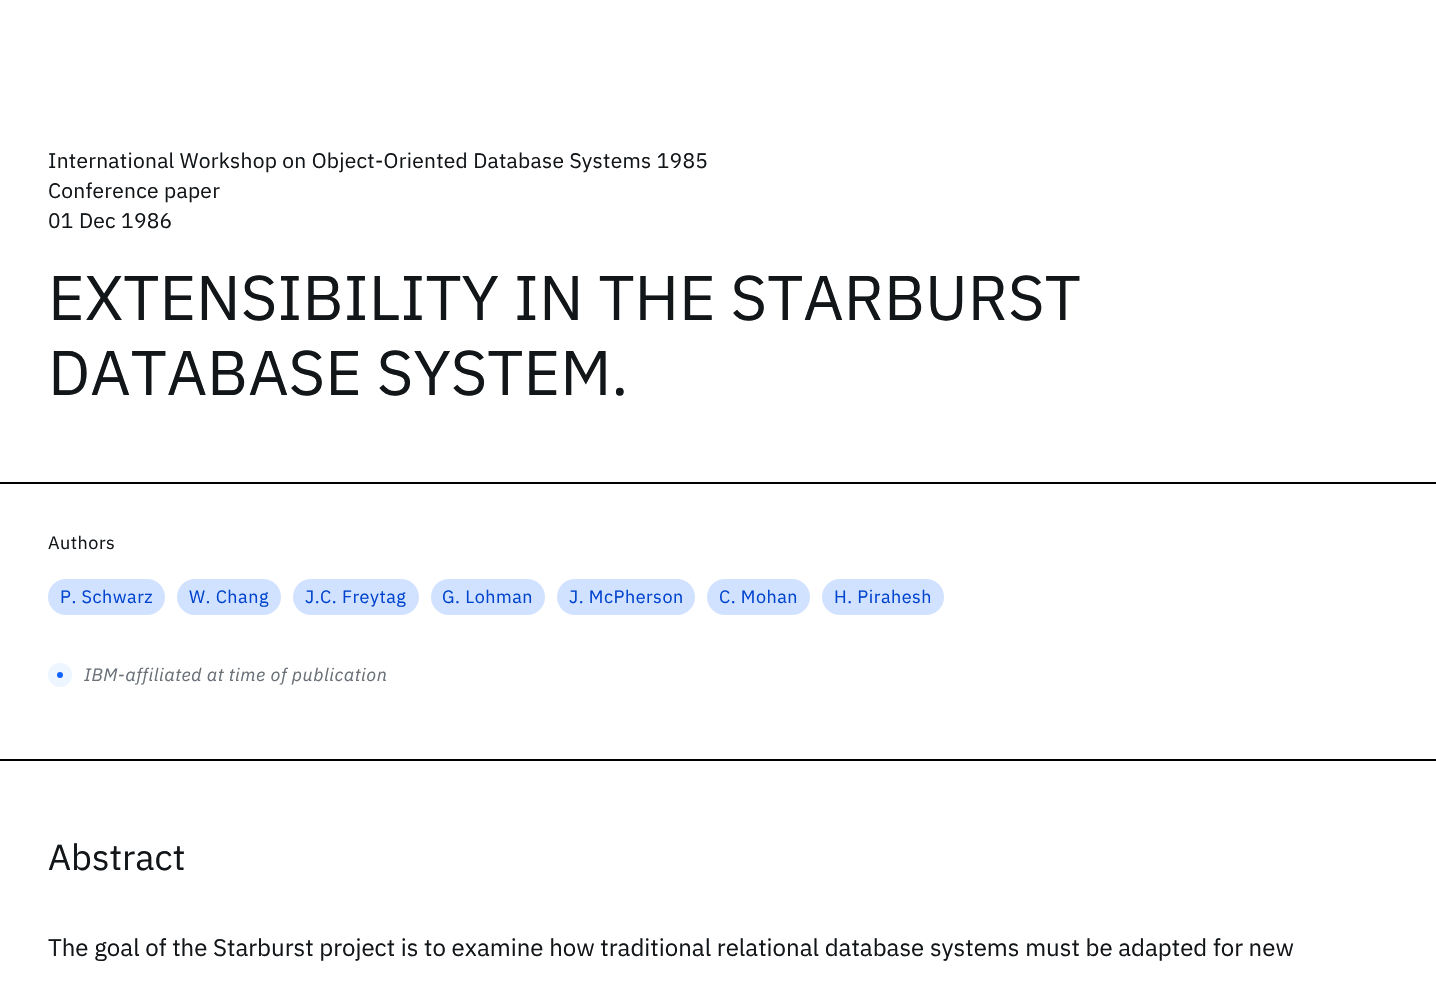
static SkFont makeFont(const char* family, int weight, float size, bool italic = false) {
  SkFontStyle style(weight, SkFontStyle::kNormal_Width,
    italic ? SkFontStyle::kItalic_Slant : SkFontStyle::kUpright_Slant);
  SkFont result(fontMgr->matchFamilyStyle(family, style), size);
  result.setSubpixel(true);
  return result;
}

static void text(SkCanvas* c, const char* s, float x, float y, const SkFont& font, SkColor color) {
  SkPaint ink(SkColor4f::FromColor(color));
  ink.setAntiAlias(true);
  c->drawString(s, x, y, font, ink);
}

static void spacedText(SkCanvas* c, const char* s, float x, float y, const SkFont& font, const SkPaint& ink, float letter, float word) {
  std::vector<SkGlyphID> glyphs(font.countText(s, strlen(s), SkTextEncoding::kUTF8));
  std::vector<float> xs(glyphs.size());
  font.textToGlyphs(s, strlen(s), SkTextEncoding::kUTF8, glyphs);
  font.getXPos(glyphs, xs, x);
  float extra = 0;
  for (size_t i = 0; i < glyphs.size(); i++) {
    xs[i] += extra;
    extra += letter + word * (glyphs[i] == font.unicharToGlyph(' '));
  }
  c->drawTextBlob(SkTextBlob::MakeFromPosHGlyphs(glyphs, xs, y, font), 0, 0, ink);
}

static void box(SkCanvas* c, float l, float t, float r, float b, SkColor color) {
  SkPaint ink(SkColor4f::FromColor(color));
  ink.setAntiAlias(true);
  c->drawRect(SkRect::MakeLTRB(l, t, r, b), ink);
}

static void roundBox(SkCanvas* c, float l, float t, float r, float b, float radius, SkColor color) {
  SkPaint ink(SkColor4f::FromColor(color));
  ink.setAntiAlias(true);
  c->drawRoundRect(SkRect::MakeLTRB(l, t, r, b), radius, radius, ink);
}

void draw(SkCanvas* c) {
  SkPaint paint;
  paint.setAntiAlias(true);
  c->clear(0xffffffff);
  box(c, 0, 482, 1436, 484, 0xff000000);
  SkFont face1 = makeFont("IBM Plex Sans", 400, 21);
  paint.setColor(0xff121619);
  spacedText(c, "International Workshop on Object-Oriented Database Systems 1985", 48, 168, face1, paint, 0.25f, 0);
  spacedText(c, "Conference paper", 48, 198, face1, paint, 0.25f, 0);
  spacedText(c, "01 Dec 1986", 48, 228, face1, paint, 0.25f, 0);
  SkFont face2 = makeFont("IBM Plex Sans", 400, 63);
  text(c, "EXTENSIBILITY IN THE STARBURST", 48, 320, face2, 0xff121619);
  text(c, "DATABASE SYSTEM.", 48, 395, face2, 0xff121619);
  SkFont face3 = makeFont("IBM Plex Sans", 400, 36);
  text(c, "Abstract", 48, 870, face3, 0xff121619);
  SkFont face4 = makeFont("IBM Plex Sans", 400, 24);
  text(c, "The goal of the Starburst project is to examine how traditional relational database systems must be adapted for new", 48, 956, face4, 0xff121619);
  box(c, 0, 759, 1436, 761, 0xff000000);
  SkFont face5 = makeFont("IBM Plex Sans", 400, 18);
  spacedText(c, "Authors", 48, 549, face5, paint, 0.5f, 0);
  roundBox(c, 48, 579, 165, 615, 18, 0xffd0e2ff);
  paint.setColor(0xff0043ce);
  spacedText(c, "P. Schwarz", 60, 603, face5, paint, 0.5f, 0);
  roundBox(c, 177, 579, 281, 615, 18, 0xffd0e2ff);
  spacedText(c, "W. Chang", 189, 603, face5, paint, 0.5f, 0);
  roundBox(c, 293, 579, 419, 615, 18, 0xffd0e2ff);
  spacedText(c, "J.C. Freytag", 305, 603, face5, paint, 0.5f, 0);
  roundBox(c, 431, 579, 545, 615, 18, 0xffd0e2ff);
  spacedText(c, "G. Lohman", 442, 603, face5, paint, 0.5f, 0);
  roundBox(c, 557, 579, 695, 615, 18, 0xffd0e2ff);
  spacedText(c, "J. McPherson", 569, 603, face5, paint, 0.5f, 0);
  roundBox(c, 707, 579, 810, 615, 18, 0xffd0e2ff);
  spacedText(c, "C. Mohan", 719, 603, face5, paint, 0.5f, 0);
  roundBox(c, 822, 579, 944, 615, 18, 0xffd0e2ff);
  spacedText(c, "H. Pirahesh", 834, 603, face5, paint, 0.5f, 0);
  paint.setColor(0xffedf5ff);
  c->drawCircle(60, 675, 12, paint);
  paint.setColor(0xff0f62fe);
  c->drawCircle(60, 675, 3, paint);
  SkFont face6 = makeFont("IBM Plex Sans", 400, 18, true);
  paint.setColor(0xff697077);
  spacedText(c, "IBM-affiliated at time of publication", 84, 681, face6, paint, 0.5f, 0);
}
